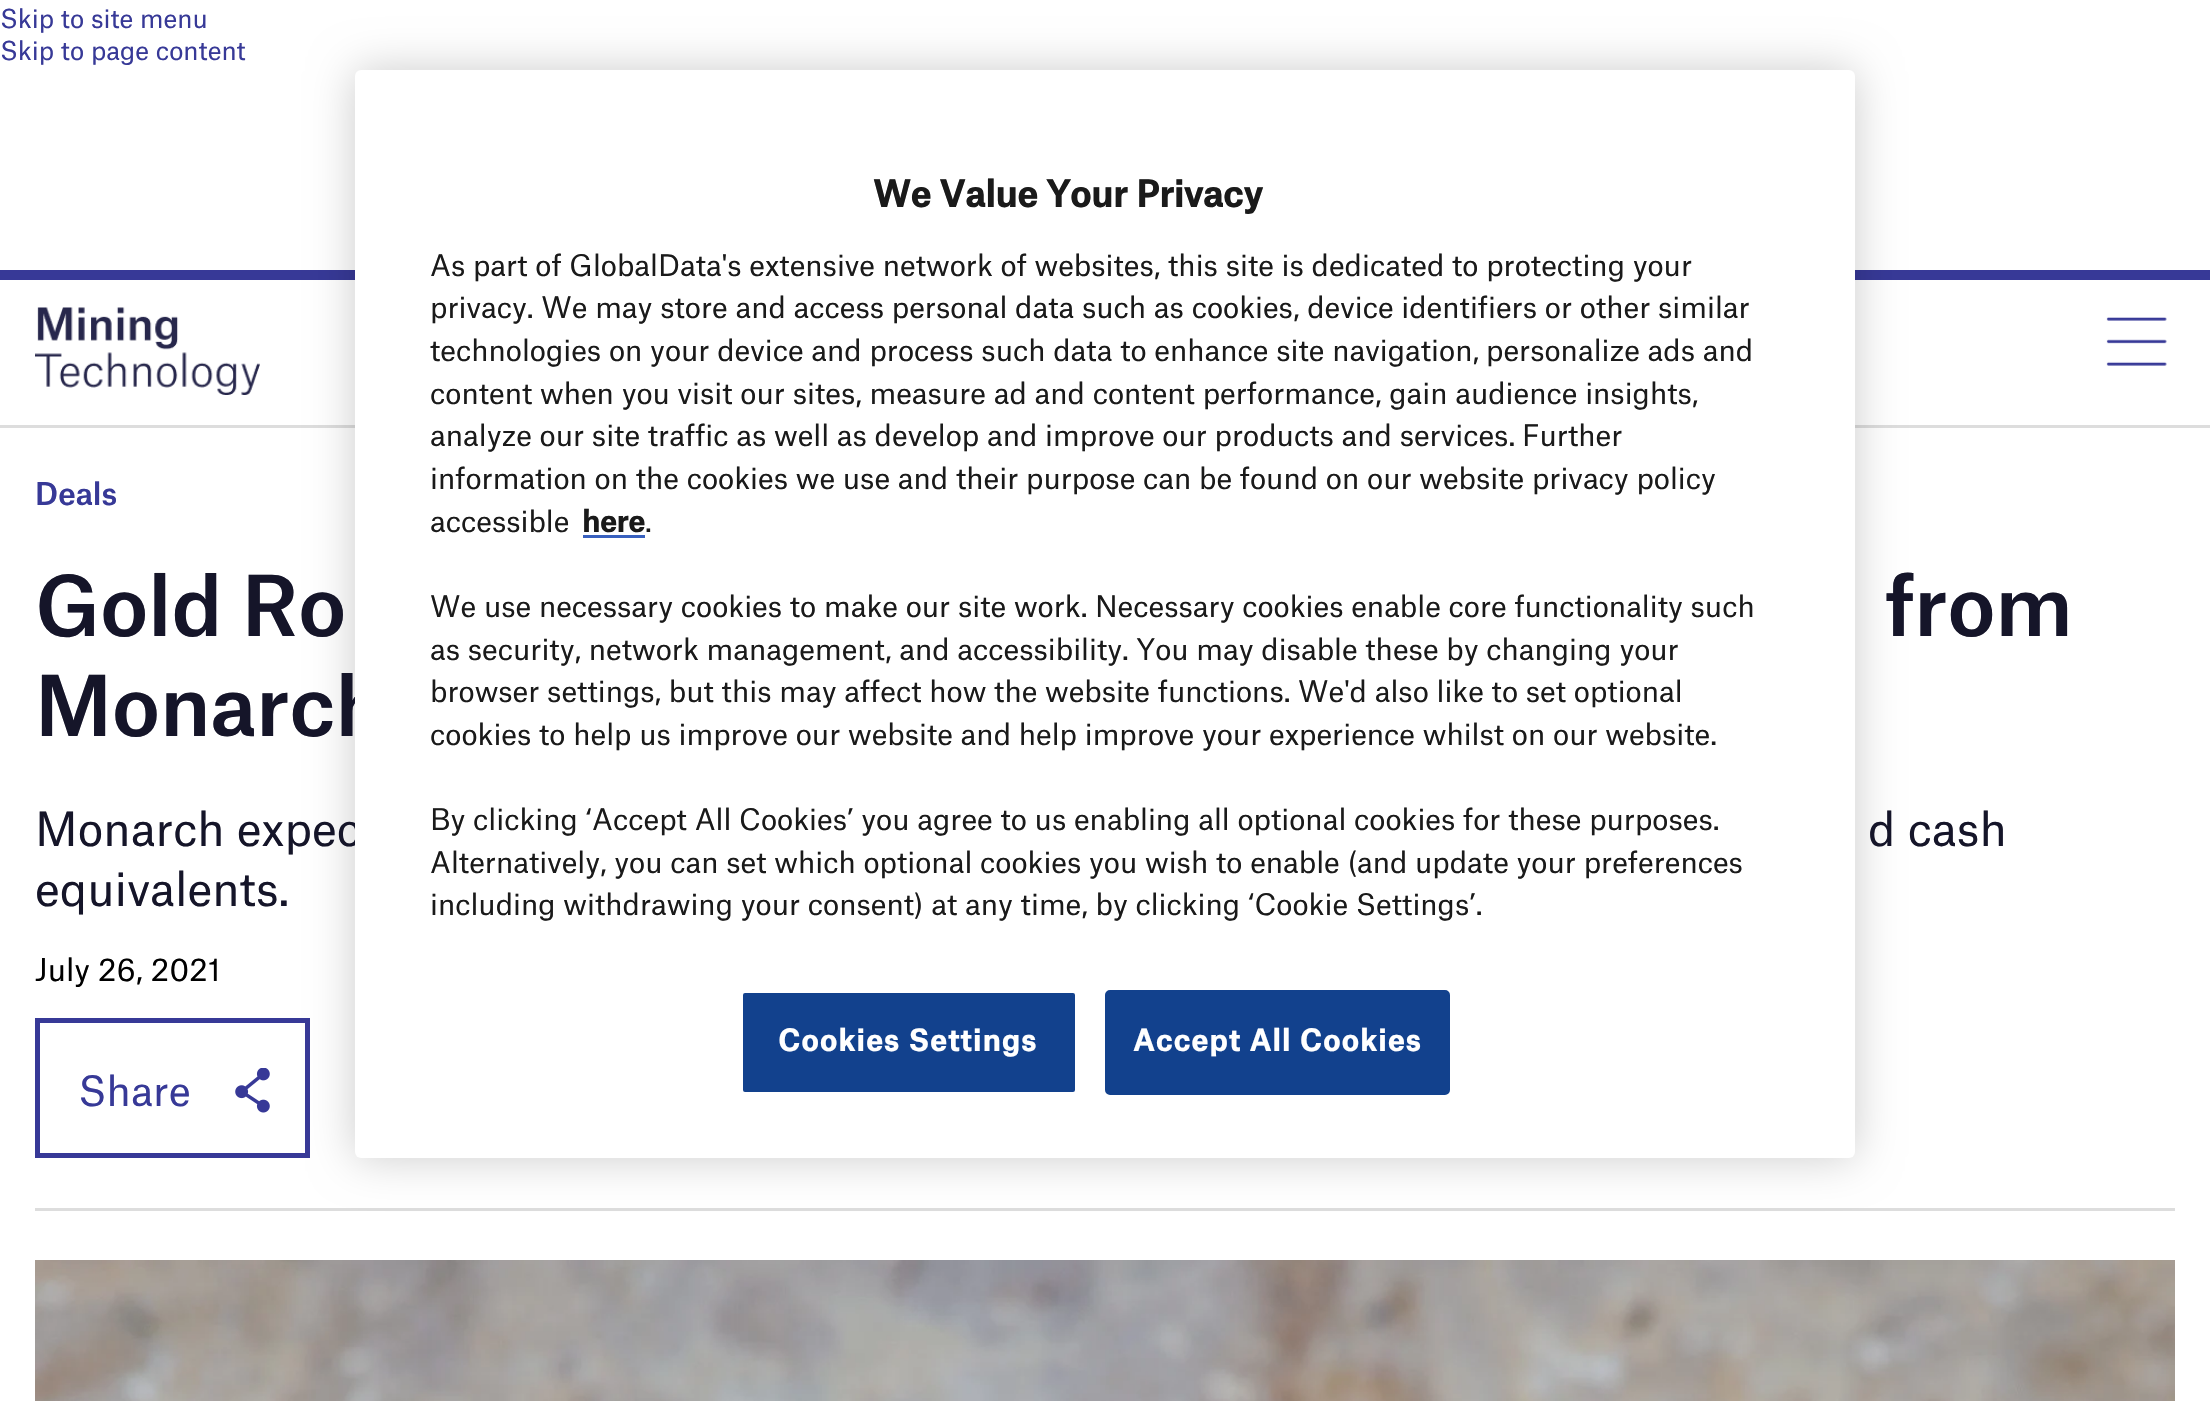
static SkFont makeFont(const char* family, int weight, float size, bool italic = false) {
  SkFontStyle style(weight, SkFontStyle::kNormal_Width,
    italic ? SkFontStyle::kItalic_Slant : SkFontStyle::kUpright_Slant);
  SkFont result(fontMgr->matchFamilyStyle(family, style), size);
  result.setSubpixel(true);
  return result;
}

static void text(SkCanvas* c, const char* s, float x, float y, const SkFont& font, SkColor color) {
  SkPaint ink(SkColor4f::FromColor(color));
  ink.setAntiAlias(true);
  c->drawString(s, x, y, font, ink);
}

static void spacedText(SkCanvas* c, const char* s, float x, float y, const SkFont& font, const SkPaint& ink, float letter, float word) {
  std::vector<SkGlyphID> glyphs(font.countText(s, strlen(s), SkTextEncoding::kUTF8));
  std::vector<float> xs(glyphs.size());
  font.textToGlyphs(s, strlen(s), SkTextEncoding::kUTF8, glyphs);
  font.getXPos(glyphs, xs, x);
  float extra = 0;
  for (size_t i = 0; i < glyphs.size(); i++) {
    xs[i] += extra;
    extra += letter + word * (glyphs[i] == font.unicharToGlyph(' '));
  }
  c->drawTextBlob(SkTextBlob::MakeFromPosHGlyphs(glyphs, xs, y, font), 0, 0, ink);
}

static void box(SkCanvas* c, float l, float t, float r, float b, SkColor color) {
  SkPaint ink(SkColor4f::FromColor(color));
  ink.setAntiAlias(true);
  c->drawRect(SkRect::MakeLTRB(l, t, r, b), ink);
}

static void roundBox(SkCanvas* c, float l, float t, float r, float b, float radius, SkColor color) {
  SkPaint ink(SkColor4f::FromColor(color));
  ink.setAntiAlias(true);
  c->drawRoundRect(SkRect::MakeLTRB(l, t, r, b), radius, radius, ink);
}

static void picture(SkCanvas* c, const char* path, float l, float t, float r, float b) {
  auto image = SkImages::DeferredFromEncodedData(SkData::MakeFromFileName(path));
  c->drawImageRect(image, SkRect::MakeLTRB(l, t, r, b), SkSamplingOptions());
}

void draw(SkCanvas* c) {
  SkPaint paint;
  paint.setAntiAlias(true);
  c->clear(0xffffffff);
  SkFont face1 = makeFont("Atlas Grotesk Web", 400, 25);
  text(c, "Skip to site menu", 0, 28, face1, 0xff373997);
  text(c, "Skip to page content", 0, 60, face1, 0xff373997);
  box(c, 0, 270, 2210, 280, 0xff373997);
  box(c, 0, 425, 2210, 428, 0xffdddddd);
  box(c, 35, 1208, 2175, 1211, 0xffdddddd);
  paint.setStyle(SkPaint::kStroke_Style);
  paint.setStrokeWidth(5);
  paint.setColor(0xff373997);
  c->drawRect(SkRect::MakeLTRB(37.5f, 1020.5f, 307.5f, 1155.5f), paint);
  paint.setStyle(SkPaint::kFill_Style);
  paint.setColor(0x33000000);
  paint.setMaskFilter(SkMaskFilter::MakeBlur(kNormal_SkBlurStyle, 22.5f));
  c->drawRoundRect(SkRect::MakeLTRB(355, 70, 1855, 1158), 6, 6, paint);
  paint.setMaskFilter(nullptr);
  SkFont face2 = makeFont("Atlas Grotesk Web", 500, 80);
  text(c, "Monarch", 35, 736, face2, 0xff151529);
  SkFont face3 = makeFont("Atlas Grotesk Web", 400, 45);
  text(c, "Monarch expec", 35, 846, face3, 0xff151529);
  roundBox(c, 355, 70, 1855, 1158, 6, 0xffffffff);
  SkFont face4 = makeFont("Atlas Grotesk Web", 700, 35);
  text(c, "We Value Your Privacy", 873, 207, face4, 0xff1a1a1a);
  SkFont face5 = makeFont("Atlas Grotesk Web", 400, 28.45f);
  text(c, "As part of GlobalData's extensive network of websites, this site is dedicated to protecting your", 430, 276, face5, 0xff1a1a1a);
  text(c, "privacy. We may store and access personal data such as cookies, device identifiers or other similar", 430, 318, face5, 0xff1a1a1a);
  text(c, "technologies on your device and process such data to enhance site navigation,", 430, 361, face5, 0xff1a1a1a);
  text(c, "personalize ads and", 1486, 361, face5, 0xff1a1a1a);
  text(c, "content when you visit our sites, measure ad and content performance, gain audience insights,", 430, 404, face5, 0xff1a1a1a);
  text(c, "analyze our site traffic as well as develop and improve our products and services.", 430, 446, face5, 0xff1a1a1a);
  text(c, "Further", 1522, 446, face5, 0xff1a1a1a);
  text(c, "information on the cookies we use and their purpose can be found on our website privacy policy", 430, 489, face5, 0xff1a1a1a);
  text(c, "accessible", 430, 532, face5, 0xff1a1a1a);
  SkFont face6 = makeFont("Atlas Grotesk Web", 700, 28.45f);
  text(c, "here", 582, 532, face6, 0xff1a1a1a);
  box(c, 583, 535, 645, 538, 0xff3860be);
  text(c, ".", 645, 532, face5, 0xff1a1a1a);
  text(c, "We use necessary cookies to make our site work.", 430, 617, face5, 0xff1a1a1a);
  text(c, "Necessary cookies enable core functionality such", 1095, 617, face5, 0xff1a1a1a);
  text(c, "as security, network management, and accessibility. You may disable these by changing your", 430, 660, face5, 0xff1a1a1a);
  text(c, "browser settings, but this may affect how the website functions.", 430, 702, face5, 0xff1a1a1a);
  text(c, "We'd also like to set optional", 1298, 702, face5, 0xff1a1a1a);
  text(c, "cookies to help us improve our website and help improve your experience whilst on our website.", 430, 745, face5, 0xff1a1a1a);
  text(c, "By clicking ‘Accept All Cookies’ you agree to us enabling all optional cookies for these purposes.", 430, 830, face5, 0xff1a1a1a);
  text(c, "Alternatively, you can set which optional cookies you wish to enable (and update your preferences", 430, 873, face5, 0xff1a1a1a);
  text(c, "including withdrawing your consent) at any time, by clicking ‘Cookie Settings’.", 430, 915, face5, 0xff1a1a1a);
  paint.setColor(0xff12418d);
  c->drawRoundRect(SkRect::MakeLTRB(741.5f, 991.5f, 1076.5f, 1093.5f), 3.5f, 3.5f, paint);
  paint.setStyle(SkPaint::kStroke_Style);
  paint.setStrokeWidth(3);
  paint.setColor(0xffffffff);
  c->drawRoundRect(SkRect::MakeLTRB(741.5f, 991.5f, 1076.5f, 1093.5f), 3.5f, 3.5f, paint);
  paint.setStyle(SkPaint::kFill_Style);
  spacedText(c, "Cookies Settings", 778, 1051, face6, paint, 1.4f, 0);
  paint.setColor(0xff12418d);
  c->drawRoundRect(SkRect::MakeLTRB(1106.5f, 991.5f, 1448.5f, 1093.5f), 3.5f, 3.5f, paint);
  paint.setStyle(SkPaint::kStroke_Style);
  c->drawRoundRect(SkRect::MakeLTRB(1106.5f, 991.5f, 1448.5f, 1093.5f), 3.5f, 3.5f, paint);
  paint.setStyle(SkPaint::kFill_Style);
  paint.setColor(0xffffffff);
  spacedText(c, "Accept All Cookies", 1133, 1051, face6, paint, 1.4f, 0);
  picture(c, "img_01.png", 35, 307, 260, 395);
  picture(c, "img_02.png", 2106, 317, 2167, 366);
  SkFont face7 = makeFont("Atlas Grotesk Web", 500, 30);
  text(c, "Deals", 35, 505, face7, 0xff373997);
  text(c, "Gold Ro", 35, 636, face2, 0xff151529);
  text(c, "from", 1885, 636, face2, 0xff151529);
  text(c, "d cash", 1868, 846, face3, 0xff151529);
  text(c, "equivalents.", 35, 906, face3, 0xff151529);
  SkFont face8 = makeFont("Atlas Grotesk Web", 400, 30);
  text(c, "July 26, 2021", 35, 981, face8, 0xff000000);
  SkFont face9 = makeFont("Atlas Grotesk Web", 400, 40);
  text(c, "Share", 78, 1106, face9, 0xff373997);
  picture(c, "img_03.png", 235, 1068, 270, 1113);
  picture(c, "img_04.png", 35, 1260, 2175, 1401);
}
